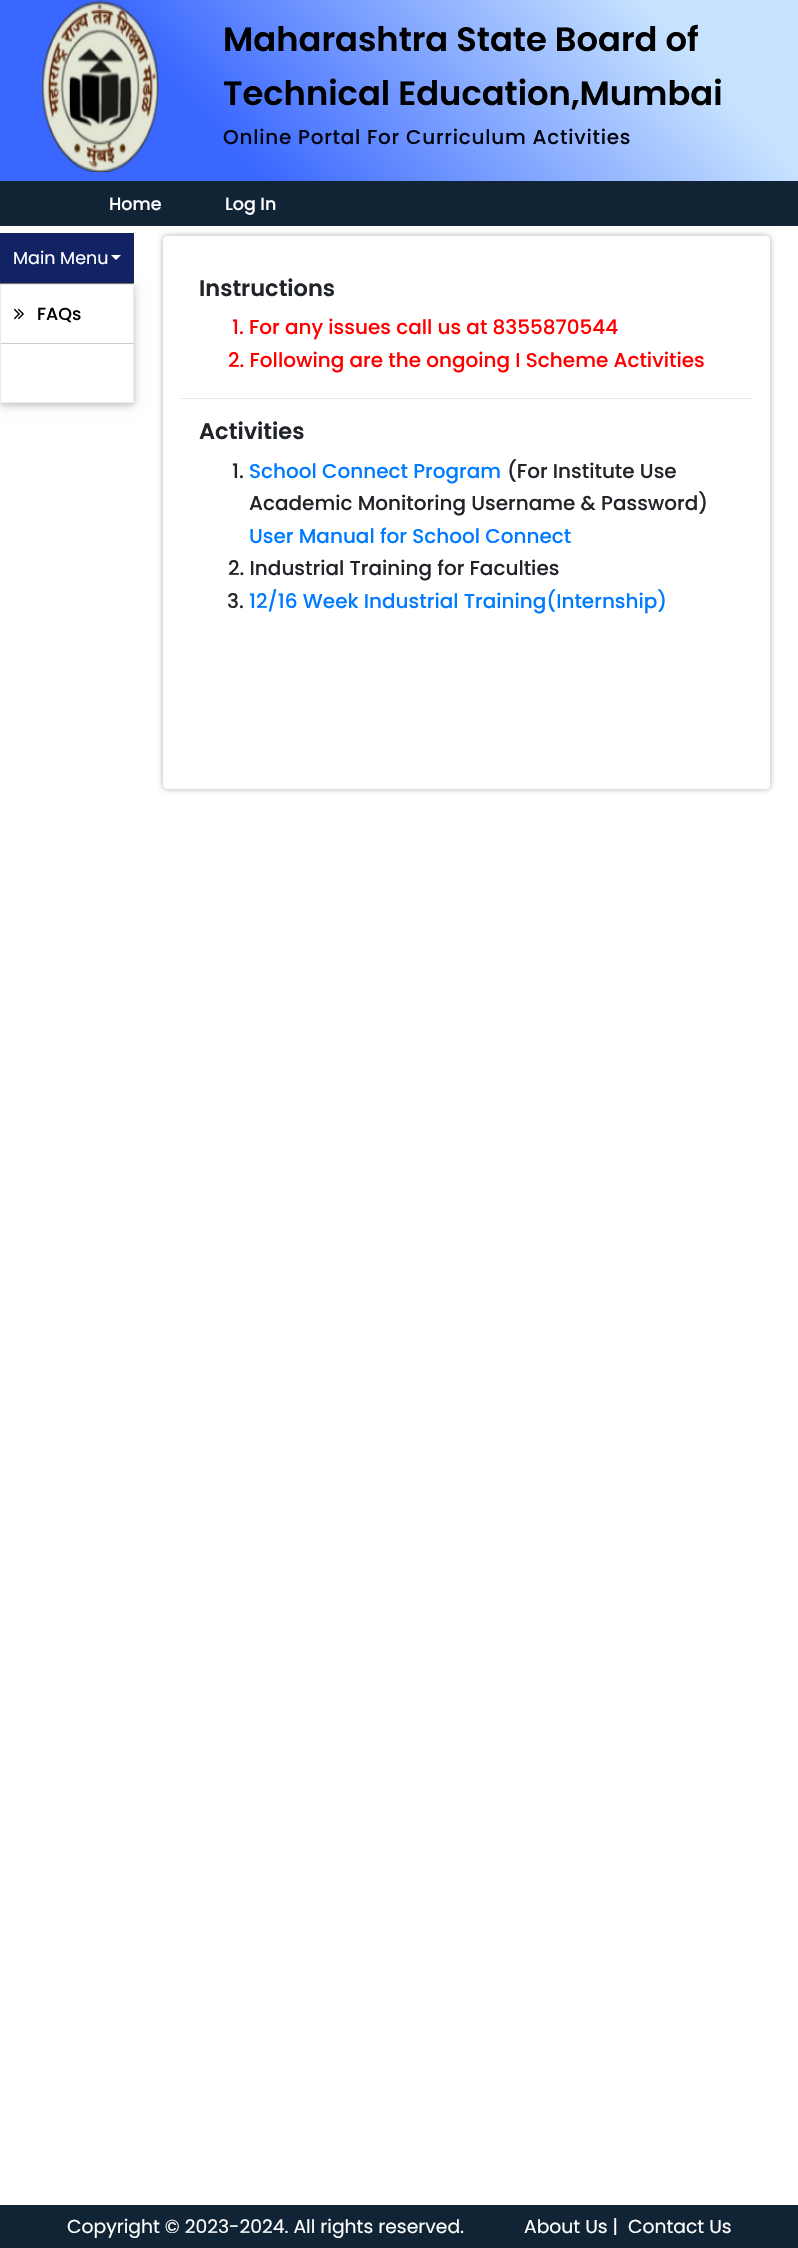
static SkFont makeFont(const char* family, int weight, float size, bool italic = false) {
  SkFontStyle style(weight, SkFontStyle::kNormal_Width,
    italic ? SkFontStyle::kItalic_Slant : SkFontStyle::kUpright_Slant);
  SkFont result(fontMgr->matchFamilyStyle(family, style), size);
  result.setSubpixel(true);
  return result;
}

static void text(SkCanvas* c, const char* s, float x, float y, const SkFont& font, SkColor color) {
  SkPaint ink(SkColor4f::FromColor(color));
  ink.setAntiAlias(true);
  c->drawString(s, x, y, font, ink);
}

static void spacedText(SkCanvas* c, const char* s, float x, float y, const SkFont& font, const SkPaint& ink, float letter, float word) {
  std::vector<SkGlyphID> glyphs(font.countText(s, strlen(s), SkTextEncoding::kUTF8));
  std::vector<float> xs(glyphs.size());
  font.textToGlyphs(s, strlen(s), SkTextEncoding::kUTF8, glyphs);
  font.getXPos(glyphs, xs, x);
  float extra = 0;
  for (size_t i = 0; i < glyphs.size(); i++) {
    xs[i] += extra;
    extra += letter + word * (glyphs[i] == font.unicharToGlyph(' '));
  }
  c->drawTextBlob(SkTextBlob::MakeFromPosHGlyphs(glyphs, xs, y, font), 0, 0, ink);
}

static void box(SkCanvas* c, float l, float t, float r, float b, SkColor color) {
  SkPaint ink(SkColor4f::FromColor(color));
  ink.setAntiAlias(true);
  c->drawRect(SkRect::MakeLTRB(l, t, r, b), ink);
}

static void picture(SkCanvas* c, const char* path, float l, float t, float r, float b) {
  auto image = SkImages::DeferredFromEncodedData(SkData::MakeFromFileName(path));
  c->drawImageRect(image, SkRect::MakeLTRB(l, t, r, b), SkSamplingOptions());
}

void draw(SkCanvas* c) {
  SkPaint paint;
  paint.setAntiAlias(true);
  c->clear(0xffffffff);
  {
    const SkColor colors[] = {0xffc7e2ff, 0xff3a67ff};
    const float stops[] = {0.17f, 0.73f};
    const SkPoint ends[] = {{667, -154}, {132, 328}};
    paint.setShader(SkGradientShader::MakeLinear(ends, colors, stops, 2, SkTileMode::kClamp));
    paint.setAlpha(255);
  }
  c->drawRect(SkRect::MakeLTRB(0, 0, 798, 181), paint);
  picture(c, "img_01.png", 42, 0, 159, 172);
  SkFont face1 = makeFont("Poppins", 600, 33.75f);
  text(c, "Maharashtra State Board of", 223, 51, face1, 0xff000000);
  text(c, "Technical Education,Mumbai", 223, 105, face1, 0xff000000);
  SkFont face2 = makeFont("Poppins", 500, 20);
  paint.setShader(nullptr);
  paint.setColor(0xff020610);
  spacedText(c, "Online Portal For Curriculum Activities", 223, 144, face2, paint, 0.75f, 0);
  box(c, 0, 181, 798, 226, 0xff112435);
  SkFont face3 = makeFont("Poppins", 500, 17.5f);
  text(c, "Home", 109, 210, face3, 0xffffffff);
  text(c, "Log In", 225, 210, face3, 0xffffffff);
  box(c, 0, 233, 134, 283, 0xff122364);
  box(c, 0, 283, 134, 284, 0xff7f7b7b);
  SkFont face4 = makeFont("Poppins", 400, 17.5f);
  text(c, "Main Menu", 13, 264, face4, 0xffffffff);
  paint.setColor(0xffffffff);
  c->drawPath(SkPathBuilder().moveTo(111, 255).lineTo(121, 255).lineTo(116, 260).close().detach(), paint);
  c->save();
  c->clipPath(SkPathBuilder(SkPathFillType::kEvenOdd).moveTo(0, 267).lineTo(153, 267).lineTo(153, 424).lineTo(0, 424).close().moveTo(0, 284).lineTo(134, 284).lineTo(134, 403).lineTo(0, 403).close().detach(), true);
  paint.setColor(0x1f000000);
  paint.setMaskFilter(SkMaskFilter::MakeBlur(kNormal_SkBlurStyle, 6));
  c->drawRect(SkRect::MakeLTRB(0, 286, 134, 405), paint);
  paint.setMaskFilter(nullptr);
  c->restore();
  c->save();
  c->clipPath(SkPathBuilder(SkPathFillType::kEvenOdd).moveTo(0, 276).lineTo(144, 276).lineTo(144, 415).lineTo(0, 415).close().moveTo(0, 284).lineTo(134, 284).lineTo(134, 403).lineTo(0, 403).close().detach(), true);
  paint.setColor(0x29000000);
  paint.setMaskFilter(SkMaskFilter::MakeBlur(kNormal_SkBlurStyle, 3));
  c->drawRect(SkRect::MakeLTRB(0, 286, 134, 405), paint);
  paint.setMaskFilter(nullptr);
  c->restore();
  paint.setStyle(SkPaint::kStroke_Style);
  paint.setStrokeWidth(1);
  paint.setColor(0xffebebeb);
  c->drawRect(SkRect::MakeLTRB(0.5f, 284.5f, 133.5f, 402.5f), paint);
  box(c, 1, 343, 133, 344, 0xffcfcbcb);
  picture(c, "img_02.png", 13, 308, 24, 320);
  text(c, "FAQs", 37, 320, face3, 0xff000000);
  c->save();
  c->clipPath(SkPathBuilder(SkPathFillType::kEvenOdd).moveTo(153, 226).lineTo(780, 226).lineTo(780, 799).lineTo(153, 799).close().moveTo(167, 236).lineTo(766, 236).cubicTo(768, 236, 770, 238, 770, 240).lineTo(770, 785).cubicTo(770, 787, 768, 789, 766, 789).lineTo(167, 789).cubicTo(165, 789, 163, 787, 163, 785).lineTo(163, 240).cubicTo(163, 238, 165, 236, 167, 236).close().detach(), true);
  paint.setStyle(SkPaint::kFill_Style);
  paint.setColor(0x9e808080);
  paint.setMaskFilter(SkMaskFilter::MakeBlur(kNormal_SkBlurStyle, 3));
  c->drawRoundRect(SkRect::MakeLTRB(163, 236, 770, 789), 4, 4, paint);
  paint.setMaskFilter(nullptr);
  c->restore();
  SkFont face5 = makeFont("Poppins", 600, 22.5f);
  text(c, "Instructions", 199, 296, face5, 0xff212529);
  text(c, "1. For any issues call us at 8355870544", 232, 334, face2, 0xffff0000);
  text(c, "2. Following are the ongoing I Scheme Activities", 228, 367, face2, 0xffff0000);
  box(c, 181, 398, 751, 399, 0xffe6e6e6);
  text(c, "Activities", 199, 439, face5, 0xff212529);
  text(c, "1.", 232, 478, face2, 0xff212529);
  text(c, "School Connect Program", 249, 478, face2, 0xff007bff);
  text(c, "(For Institute Use", 507, 478, face2, 0xff212529);
  text(c, "Academic Monitoring Username & Password)", 249, 510, face2, 0xff212529);
  text(c, "User Manual for School Connect", 249, 543, face2, 0xff007bff);
  text(c, "2. Industrial Training for Faculties", 228, 575, face2, 0xff212529);
  text(c, "3.", 227, 608, face2, 0xff212529);
  text(c, "12/16 Week Industrial Training(Internship)", 249, 608, face2, 0xff007bff);
  box(c, 0, 2205, 798, 2248, 0xff112435);
  SkFont face6 = makeFont("Poppins", 400, 18.75f);
  text(c, "Copyright © 2023-2024. All rights reserved.", 67, 2233, face6, 0xffffffff);
  text(c, "About Us |", 524, 2233, face6, 0xffffffff);
  text(c, "Contact Us", 628, 2233, face6, 0xffffffff);
}
